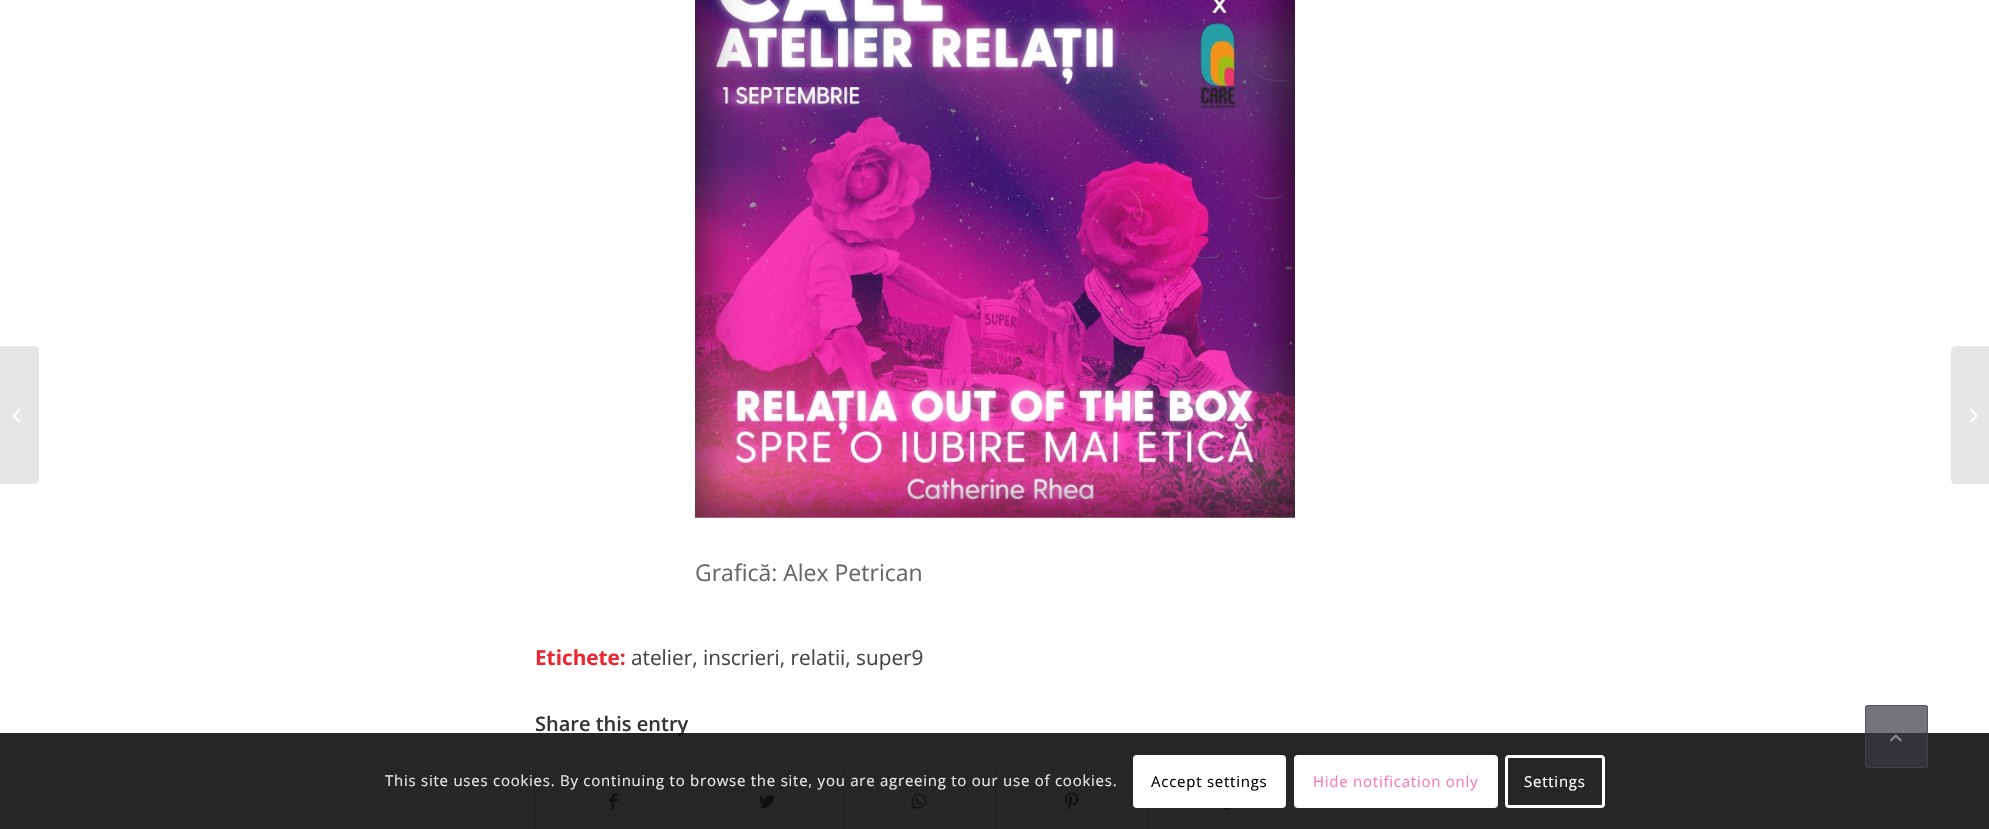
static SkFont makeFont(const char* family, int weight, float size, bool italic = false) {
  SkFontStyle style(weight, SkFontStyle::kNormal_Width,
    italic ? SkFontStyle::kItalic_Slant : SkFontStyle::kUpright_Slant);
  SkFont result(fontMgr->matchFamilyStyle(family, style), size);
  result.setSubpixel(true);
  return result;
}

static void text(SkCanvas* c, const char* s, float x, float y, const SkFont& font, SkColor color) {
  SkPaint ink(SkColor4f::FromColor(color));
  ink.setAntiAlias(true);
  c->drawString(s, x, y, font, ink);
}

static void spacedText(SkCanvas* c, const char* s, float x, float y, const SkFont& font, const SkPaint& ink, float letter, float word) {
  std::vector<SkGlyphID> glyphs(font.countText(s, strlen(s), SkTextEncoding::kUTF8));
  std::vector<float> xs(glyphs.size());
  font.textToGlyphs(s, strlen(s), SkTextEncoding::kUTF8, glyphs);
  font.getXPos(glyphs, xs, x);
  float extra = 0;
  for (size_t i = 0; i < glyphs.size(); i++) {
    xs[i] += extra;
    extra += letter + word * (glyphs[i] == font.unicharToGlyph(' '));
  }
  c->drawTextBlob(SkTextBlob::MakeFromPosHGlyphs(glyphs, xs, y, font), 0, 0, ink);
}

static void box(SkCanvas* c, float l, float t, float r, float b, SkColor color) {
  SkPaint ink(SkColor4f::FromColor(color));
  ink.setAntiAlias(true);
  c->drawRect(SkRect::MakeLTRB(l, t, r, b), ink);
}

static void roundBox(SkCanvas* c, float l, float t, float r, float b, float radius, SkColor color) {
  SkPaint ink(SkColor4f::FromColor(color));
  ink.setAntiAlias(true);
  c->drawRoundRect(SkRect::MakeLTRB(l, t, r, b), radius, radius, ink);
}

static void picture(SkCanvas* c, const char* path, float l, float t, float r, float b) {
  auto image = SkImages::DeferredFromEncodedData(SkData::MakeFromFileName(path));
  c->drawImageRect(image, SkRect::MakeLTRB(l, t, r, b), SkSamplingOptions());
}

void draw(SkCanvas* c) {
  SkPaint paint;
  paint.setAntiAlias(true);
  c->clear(0xffffffff);
  paint.setColor(0xffe6e6e6);
  c->drawPath(SkPathBuilder().moveTo(0, 346).lineTo(34, 346).cubicTo(37, 346, 39, 348, 39, 351).lineTo(39, 479).cubicTo(39, 482, 37, 484, 34, 484).lineTo(0, 484).close().detach(), paint);
  picture(c, "img_01.png", 12, 409, 21, 423);
  c->drawPath(SkPathBuilder().moveTo(1956, 346).lineTo(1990, 346).lineTo(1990, 484).lineTo(1956, 484).cubicTo(1953, 484, 1951, 482, 1951, 479).lineTo(1951, 351).cubicTo(1951, 348, 1953, 346, 1956, 346).close().detach(), paint);
  picture(c, "img_02.png", 1970, 409, 1978, 423);
  picture(c, "img_03.png", 695, 0, 1295, 518);
  SkFont face1 = makeFont("Open Sans", 400, 23);
  text(c, "Grafică: Alex Petrican", 695, 581, face1, 0xff666666);
  SkFont face2 = makeFont("Open Sans", 700, 20.75f);
  text(c, "Etichete:", 535, 665, face2, 0xffeb2731);
  SkFont face3 = makeFont("Open Sans", 400, 20.75f);
  text(c, "atelier, inscrieri, relatii, super9", 631, 665, face3, 0xff454545);
  SkFont face4 = makeFont("Open Sans", 600, 20);
  text(c, "Share this entry", 535, 731, face4, 0xff333333);
  paint.setStyle(SkPaint::kStroke_Style);
  paint.setStrokeWidth(1);
  paint.setColor(0xffe1e1e1);
  c->drawRoundRect(SkRect::MakeLTRB(535.5f, 761.5f, 1454.5f, 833.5f), 3.5f, 3.5f, paint);
  picture(c, "img_04.png", 608, 793, 618, 810);
  box(c, 689, 763, 690, 829, 0xffe1e1e1);
  picture(c, "img_05.png", 759, 794, 775, 808);
  box(c, 843, 763, 844, 829, 0xffe1e1e1);
  picture(c, "img_06.png", 911, 793, 927, 809);
  box(c, 995, 763, 996, 829, 0xffe1e1e1);
  picture(c, "img_07.png", 1065, 792, 1079, 810);
  box(c, 1148, 808, 1149, 829, 0xffe1e1e1);
  picture(c, "img_08.png", 1222, 808, 1230, 810);
  box(c, 1301, 808, 1302, 829, 0xffe1e1e1);
  box(c, 0, 733, 1989, 829, 0xd9000000);
  roundBox(c, 1865, 705, 1928, 768, 2.5f, 0xb336393d);
  paint.setColor(0xb345494d);
  c->drawRoundRect(SkRect::MakeLTRB(1865.5f, 705.5f, 1927.5f, 767.5f), 2, 2, paint);
  picture(c, "img_09.png", 1890, 734, 1902, 742);
  SkFont face5 = makeFont("Open Sans", 400, 15);
  paint.setStyle(SkPaint::kFill_Style);
  paint.setColor(0xffe9e9e9);
  spacedText(c, "This site uses cookies. By continuing to browse the site, you are agreeing to our use of cookies.", 385, 786, face5, paint, 0.75f, 0);
  roundBox(c, 1133, 755, 1286, 808, 4, 0xffffffff);
  paint.setColor(0xff000000);
  spacedText(c, "Accept settings", 1151, 787, face5, paint, 0.75f, 0);
  paint.setColor(0xffffffff);
  c->drawRoundRect(SkRect::MakeLTRB(1295.5f, 756.5f, 1496.5f, 806.5f), 2.5f, 2.5f, paint);
  paint.setStyle(SkPaint::kStroke_Style);
  paint.setStrokeWidth(3);
  c->drawRoundRect(SkRect::MakeLTRB(1295.5f, 756.5f, 1496.5f, 806.5f), 2.5f, 2.5f, paint);
  paint.setStyle(SkPaint::kFill_Style);
  paint.setColor(0xffff75b5);
  spacedText(c, "Hide notification only", 1313, 787, face5, paint, 0.75f, 0);
  paint.setStyle(SkPaint::kStroke_Style);
  paint.setColor(0xffffffff);
  c->drawRoundRect(SkRect::MakeLTRB(1506.5f, 756.5f, 1603.5f, 806.5f), 2.5f, 2.5f, paint);
  paint.setStyle(SkPaint::kFill_Style);
  spacedText(c, "Settings", 1524, 787, face5, paint, 0.75f, 0);
}
